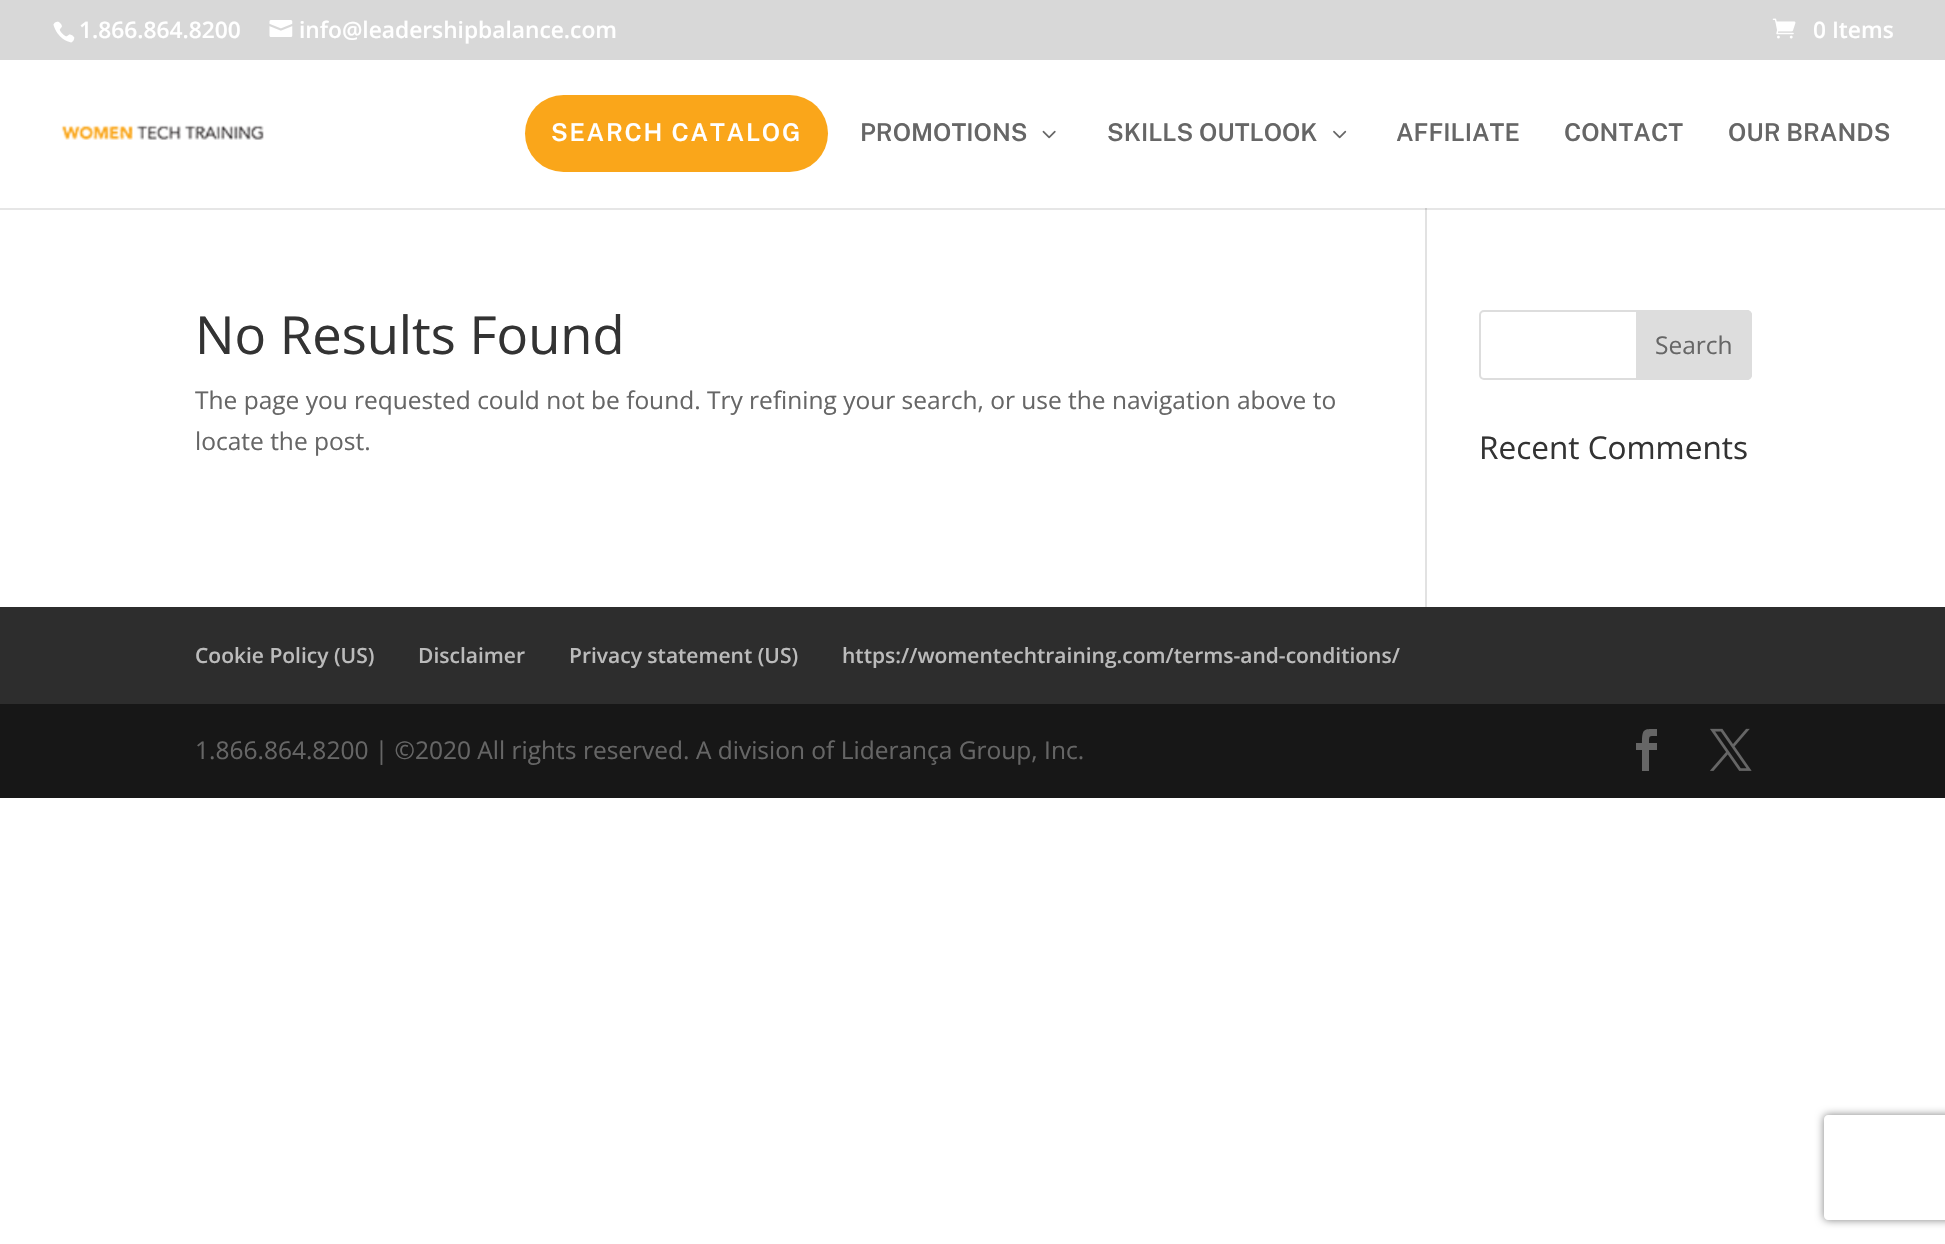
static SkFont makeFont(const char* family, int weight, float size, bool italic = false) {
  SkFontStyle style(weight, SkFontStyle::kNormal_Width,
    italic ? SkFontStyle::kItalic_Slant : SkFontStyle::kUpright_Slant);
  SkFont result(fontMgr->matchFamilyStyle(family, style), size);
  result.setSubpixel(true);
  return result;
}

static void text(SkCanvas* c, const char* s, float x, float y, const SkFont& font, SkColor color) {
  SkPaint ink(SkColor4f::FromColor(color));
  ink.setAntiAlias(true);
  c->drawString(s, x, y, font, ink);
}

static void spacedText(SkCanvas* c, const char* s, float x, float y, const SkFont& font, const SkPaint& ink, float letter, float word) {
  std::vector<SkGlyphID> glyphs(font.countText(s, strlen(s), SkTextEncoding::kUTF8));
  std::vector<float> xs(glyphs.size());
  font.textToGlyphs(s, strlen(s), SkTextEncoding::kUTF8, glyphs);
  font.getXPos(glyphs, xs, x);
  float extra = 0;
  for (size_t i = 0; i < glyphs.size(); i++) {
    xs[i] += extra;
    extra += letter + word * (glyphs[i] == font.unicharToGlyph(' '));
  }
  c->drawTextBlob(SkTextBlob::MakeFromPosHGlyphs(glyphs, xs, y, font), 0, 0, ink);
}

static void box(SkCanvas* c, float l, float t, float r, float b, SkColor color) {
  SkPaint ink(SkColor4f::FromColor(color));
  ink.setAntiAlias(true);
  c->drawRect(SkRect::MakeLTRB(l, t, r, b), ink);
}

static void roundBox(SkCanvas* c, float l, float t, float r, float b, float radius, SkColor color) {
  SkPaint ink(SkColor4f::FromColor(color));
  ink.setAntiAlias(true);
  c->drawRoundRect(SkRect::MakeLTRB(l, t, r, b), radius, radius, ink);
}

static void picture(SkCanvas* c, const char* path, float l, float t, float r, float b) {
  auto image = SkImages::DeferredFromEncodedData(SkData::MakeFromFileName(path));
  c->drawImageRect(image, SkRect::MakeLTRB(l, t, r, b), SkSamplingOptions());
}

void draw(SkCanvas* c) {
  SkPaint paint;
  paint.setAntiAlias(true);
  c->clear(0xffffffff);
  box(c, 0, 208, 1945, 210, 0xffe6e6e6);
  box(c, 0, 0, 1945, 60, 0xffd8d8d8);
  picture(c, "img_01.png", 53, 21, 75, 43);
  SkFont face1 = makeFont("Open Sans", 600, 22.75f);
  text(c, "1.866.864.8200", 79, 38, face1, 0xffffffff);
  picture(c, "img_02.png", 269, 20, 293, 37);
  text(c, "info@leadershipbalance.com", 299, 38, face1, 0xffffffff);
  picture(c, "img_03.png", 1772, 18, 1796, 39);
  text(c, "0 Items", 1813, 38, face1, 0xffffffff);
  picture(c, "img_04.png", 61, 125, 264, 140);
  roundBox(c, 525, 95, 828, 172, 38.5f, 0xfffaa61a);
  SkFont face2 = makeFont("Public Sans", 600, 24.5f);
  paint.setColor(0xffffffff);
  spacedText(c, "SEARCH CATALOG", 551, 141, face2, paint, 1.75f, 0);
  text(c, "PROMOTIONS", 860, 141, face2, 0xff666666);
  picture(c, "img_05.png", 1042, 130, 1056, 139);
  text(c, "SKILLS OUTLOOK", 1107, 141, face2, 0xff666666);
  picture(c, "img_06.png", 1333, 130, 1347, 139);
  text(c, "AFFILIATE", 1396, 141, face2, 0xff666666);
  text(c, "CONTACT", 1564, 141, face2, 0xff666666);
  text(c, "OUR BRANDS", 1728, 141, face2, 0xff666666);
  box(c, 1425, 208, 1427, 607, 0xffe2e2e2);
  box(c, 1425, 208, 1427, 210, 0xffcbcbcb);
  SkFont face3 = makeFont("Open Sans", 400, 52.5f);
  text(c, "No Results Found", 195, 354, face3, 0xff333333);
  SkFont face4 = makeFont("Open Sans", 400, 24.5f);
  text(c, "The page you requested could not be found. Try refining your search, or use the navigation above to", 195, 409, face4, 0xff666666);
  text(c, "locate the post.", 195, 450, face4, 0xff666666);
  paint.setStyle(SkPaint::kStroke_Style);
  paint.setStrokeWidth(2);
  paint.setColor(0xffdddddd);
  c->drawRoundRect(SkRect::MakeLTRB(1480, 311, 1751, 379), 4, 4, paint);
  paint.setStyle(SkPaint::kFill_Style);
  c->drawPath(SkPathBuilder().moveTo(1637, 311).lineTo(1747, 311).cubicTo(1749, 311, 1751, 313, 1751, 315).lineTo(1751, 375).cubicTo(1751, 377, 1749, 379, 1747, 379).lineTo(1637, 379).close().detach(), paint);
  paint.setStyle(SkPaint::kStroke_Style);
  c->drawPath(SkPathBuilder().moveTo(1637, 311).lineTo(1747, 311).cubicTo(1749, 311, 1751, 313, 1751, 315).lineTo(1751, 375).cubicTo(1751, 377, 1749, 379, 1747, 379).lineTo(1637, 379).close().detach(), paint);
  text(c, "Search", 1655, 354, face4, 0xff666666);
  SkFont face5 = makeFont("Open Sans", 400, 31.5f);
  text(c, "Recent Comments", 1479, 459, face5, 0xff333333);
  box(c, 0, 607, 1945, 704, 0xff2d2d2d);
  SkFont face6 = makeFont("Open Sans", 600, 21);
  text(c, "Cookie Policy (US)", 195, 663, face6, 0xffbbbbbb);
  text(c, "Disclaimer", 418, 663, face6, 0xffbbbbbb);
  text(c, "Privacy statement (US)", 569, 663, face6, 0xffbbbbbb);
  text(c, "https://womentechtraining.com/terms-and-conditions/", 842, 663, face6, 0xffbbbbbb);
  box(c, 0, 704, 1945, 798, 0xff171717);
  text(c, "1.866.864.8200 | ©2020 All rights reserved. A division of Liderança Group, Inc.", 195, 759, face4, 0xff666666);
  paint.setStyle(SkPaint::kFill_Style);
  paint.setColor(0xff666666);
  c->drawPath(SkPathBuilder().moveTo(1642, 771).lineTo(1649, 771).lineTo(1649, 750).lineTo(1657, 750).lineTo(1657, 743).lineTo(1649, 743).cubicTo(1649, 735, 1649, 736, 1657, 736).lineTo(1657, 729).cubicTo(1644, 729, 1642, 728, 1642, 743).lineTo(1636, 743).lineTo(1636, 750).lineTo(1642, 750).close().detach(), paint);
  picture(c, "img_07.png", 1710, 728, 1752, 771);
  c->save();
  c->clipPath(SkPathBuilder(SkPathFillType::kEvenOdd).moveTo(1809, 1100).lineTo(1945, 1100).lineTo(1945, 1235).lineTo(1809, 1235).close().moveTo(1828, 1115).lineTo(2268, 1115).cubicTo(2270, 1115, 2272, 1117, 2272, 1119).lineTo(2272, 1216).cubicTo(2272, 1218, 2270, 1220, 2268, 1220).lineTo(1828, 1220).cubicTo(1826, 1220, 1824, 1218, 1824, 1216).lineTo(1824, 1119).cubicTo(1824, 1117, 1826, 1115, 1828, 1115).close().detach(), true);
  paint.setColor(0xff808080);
  paint.setMaskFilter(SkMaskFilter::MakeBlur(kNormal_SkBlurStyle, 4.5f));
  c->drawRoundRect(SkRect::MakeLTRB(1824, 1115, 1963, 1220), 4, 4, paint);
  paint.setMaskFilter(nullptr);
  c->restore();
}
